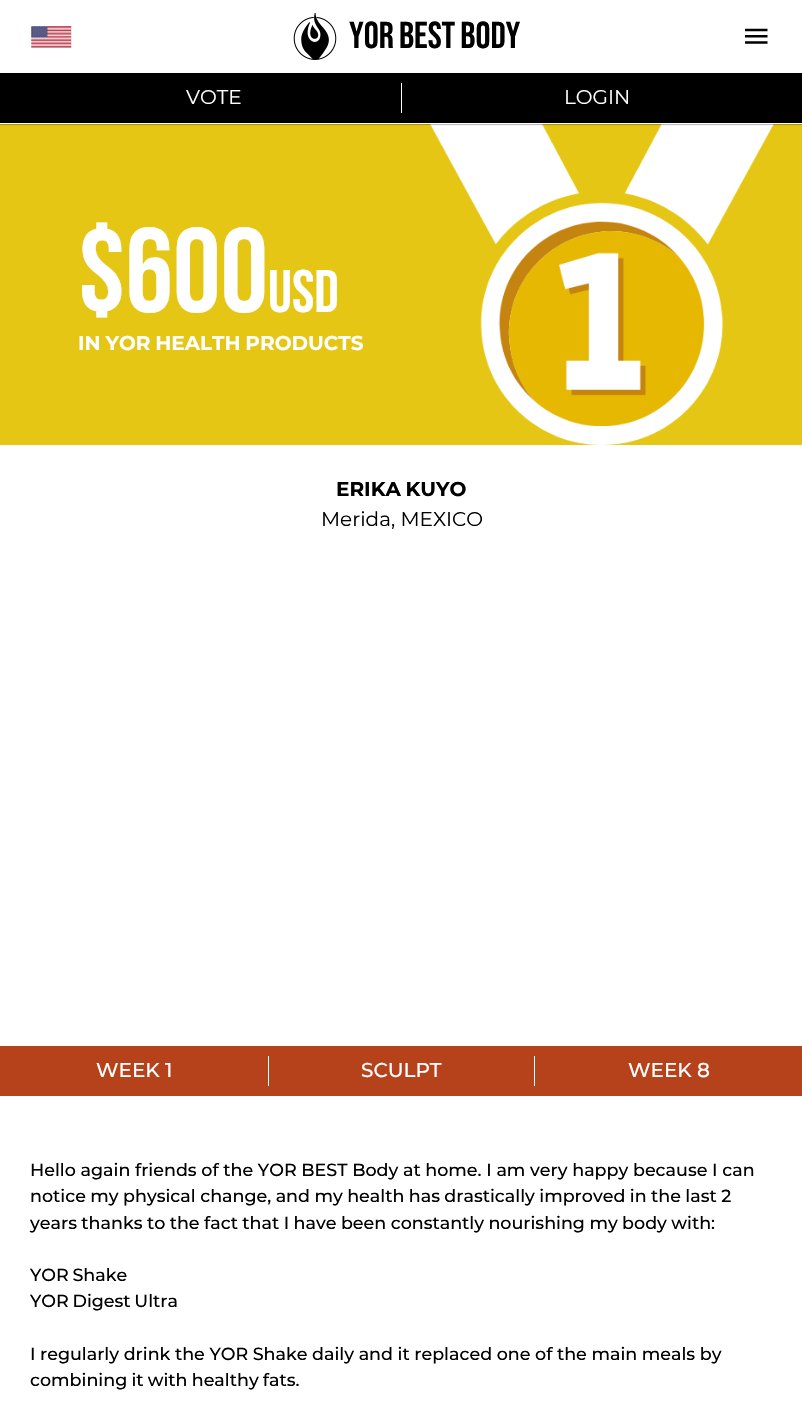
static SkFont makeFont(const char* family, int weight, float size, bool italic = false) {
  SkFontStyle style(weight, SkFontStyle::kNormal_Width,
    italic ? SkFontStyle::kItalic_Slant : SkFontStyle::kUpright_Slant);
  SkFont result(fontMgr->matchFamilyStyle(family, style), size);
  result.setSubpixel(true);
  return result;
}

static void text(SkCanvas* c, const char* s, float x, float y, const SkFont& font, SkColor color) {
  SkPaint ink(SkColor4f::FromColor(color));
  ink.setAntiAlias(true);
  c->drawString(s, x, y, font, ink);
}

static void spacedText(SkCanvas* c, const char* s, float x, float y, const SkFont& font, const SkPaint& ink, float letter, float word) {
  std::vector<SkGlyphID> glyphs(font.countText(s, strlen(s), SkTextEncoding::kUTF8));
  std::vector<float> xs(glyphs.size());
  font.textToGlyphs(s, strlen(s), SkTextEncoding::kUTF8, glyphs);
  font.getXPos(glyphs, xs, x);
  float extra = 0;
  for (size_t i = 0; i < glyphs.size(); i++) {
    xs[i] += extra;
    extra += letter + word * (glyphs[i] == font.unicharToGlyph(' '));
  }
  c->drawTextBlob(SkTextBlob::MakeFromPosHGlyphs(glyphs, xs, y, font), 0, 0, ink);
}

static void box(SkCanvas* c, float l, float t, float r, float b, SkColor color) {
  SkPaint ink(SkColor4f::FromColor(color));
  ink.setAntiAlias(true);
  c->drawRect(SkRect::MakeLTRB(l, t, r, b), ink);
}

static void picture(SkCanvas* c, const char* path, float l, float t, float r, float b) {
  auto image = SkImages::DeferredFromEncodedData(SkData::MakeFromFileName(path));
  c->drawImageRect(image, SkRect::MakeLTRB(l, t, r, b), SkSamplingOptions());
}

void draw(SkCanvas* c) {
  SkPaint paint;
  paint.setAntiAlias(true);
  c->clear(0xffffffff);
  box(c, 0, 124, 802, 445, 0xffe5c614);
  picture(c, "img_04.png", 430, 124, 774, 445);
  paint.setColor(0x3310161a);
  paint.setMaskFilter(SkMaskFilter::MakeBlur(kNormal_SkBlurStyle, 0.5f));
  c->drawRect(SkRect::MakeLTRB(0, 1, 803, 125), paint);
  paint.setMaskFilter(nullptr);
  paint.setStyle(SkPaint::kStroke_Style);
  paint.setStrokeWidth(1);
  paint.setColor(0x1a10161a);
  c->drawRect(SkRect::MakeLTRB(-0.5f, -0.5f, 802.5f, 124.5f), paint);
  box(c, 0, 0, 802, 124, 0xffffffff);
  picture(c, "img_01.png", 31, 26, 72, 48);
  picture(c, "img_02.png", 293, 13, 337, 60);
  SkFont face1 = makeFont("Bebas Neue", 400, 37.5f);
  paint.setStyle(SkPaint::kFill_Style);
  paint.setColor(0xff000000);
  spacedText(c, "YOR BEST BODY", 349, 48, face1, paint, 0, -1);
  picture(c, "img_03.png", 745, 28, 768, 44);
  box(c, 0, 73, 802, 123, 0xff000000);
  SkFont face2 = makeFont("Montserrat", 400, 20);
  text(c, "VOTE", 186, 104, face2, 0xffffffff);
  box(c, 401, 83, 402, 113, 0xffffffff);
  text(c, "LOGIN", 564, 104, face2, 0xffffffff);
  SkFont face3 = makeFont("Bebas Neue", 700, 120);
  text(c, "$600", 78, 312, face3, 0xffffffff);
  SkFont face4 = makeFont("Bebas Neue", 700, 60);
  text(c, "USD", 268, 312, face4, 0xffffffff);
  SkFont face5 = makeFont("Montserrat", 700, 20);
  paint.setColor(0xffffffff);
  spacedText(c, "IN YOR HEALTH PRODUCTS", 78, 350, face5, paint, 0, -1);
  paint.setColor(0xff000000);
  spacedText(c, "ERIKA KUYO", 336, 496, face5, paint, 0, -1);
  text(c, "Merida, MEXICO", 321, 526, face2, 0xff000000);
  box(c, 0, 1046, 802, 1096, 0xffb6421b);
  SkFont face6 = makeFont("Montserrat", 500, 20);
  text(c, "WEEK 1", 96, 1077, face6, 0xffffffff);
  box(c, 534, 1056, 535, 1086, 0xffffffff);
  box(c, 268, 1056, 269, 1086, 0xffffffff);
  text(c, "SCULPT", 361, 1077, face6, 0xffffffff);
  text(c, "WEEK 8", 628, 1077, face6, 0xffffffff);
  SkFont face7 = makeFont("Montserrat", 500, 17.5f);
  text(c, "Hello again friends of the YOR BEST Body at home. I am very happy because I can", 30, 1176, face7, 0xff000000);
  spacedText(c, "notice my physical change, and my health has drastically improved in the last 2", 30, 1202, face7, paint, 0, -0.25f);
  spacedText(c, "years thanks to the fact that I have been constantly nourishing my body with:", 30, 1229, face7, paint, 0, -0.25f);
  spacedText(c, "YOR Shake", 30, 1281, face7, paint, 0, -1);
  spacedText(c, "YOR Digest Ultra", 30, 1307, face7, paint, 0, -1);
  spacedText(c, "I regularly drink the YOR Shake daily and it replaced one of the main meals by", 30, 1360, face7, paint, 0, -0.1f);
  spacedText(c, "combining it with healthy fats.", 30, 1386, face7, paint, 0, -0.5f);
}
